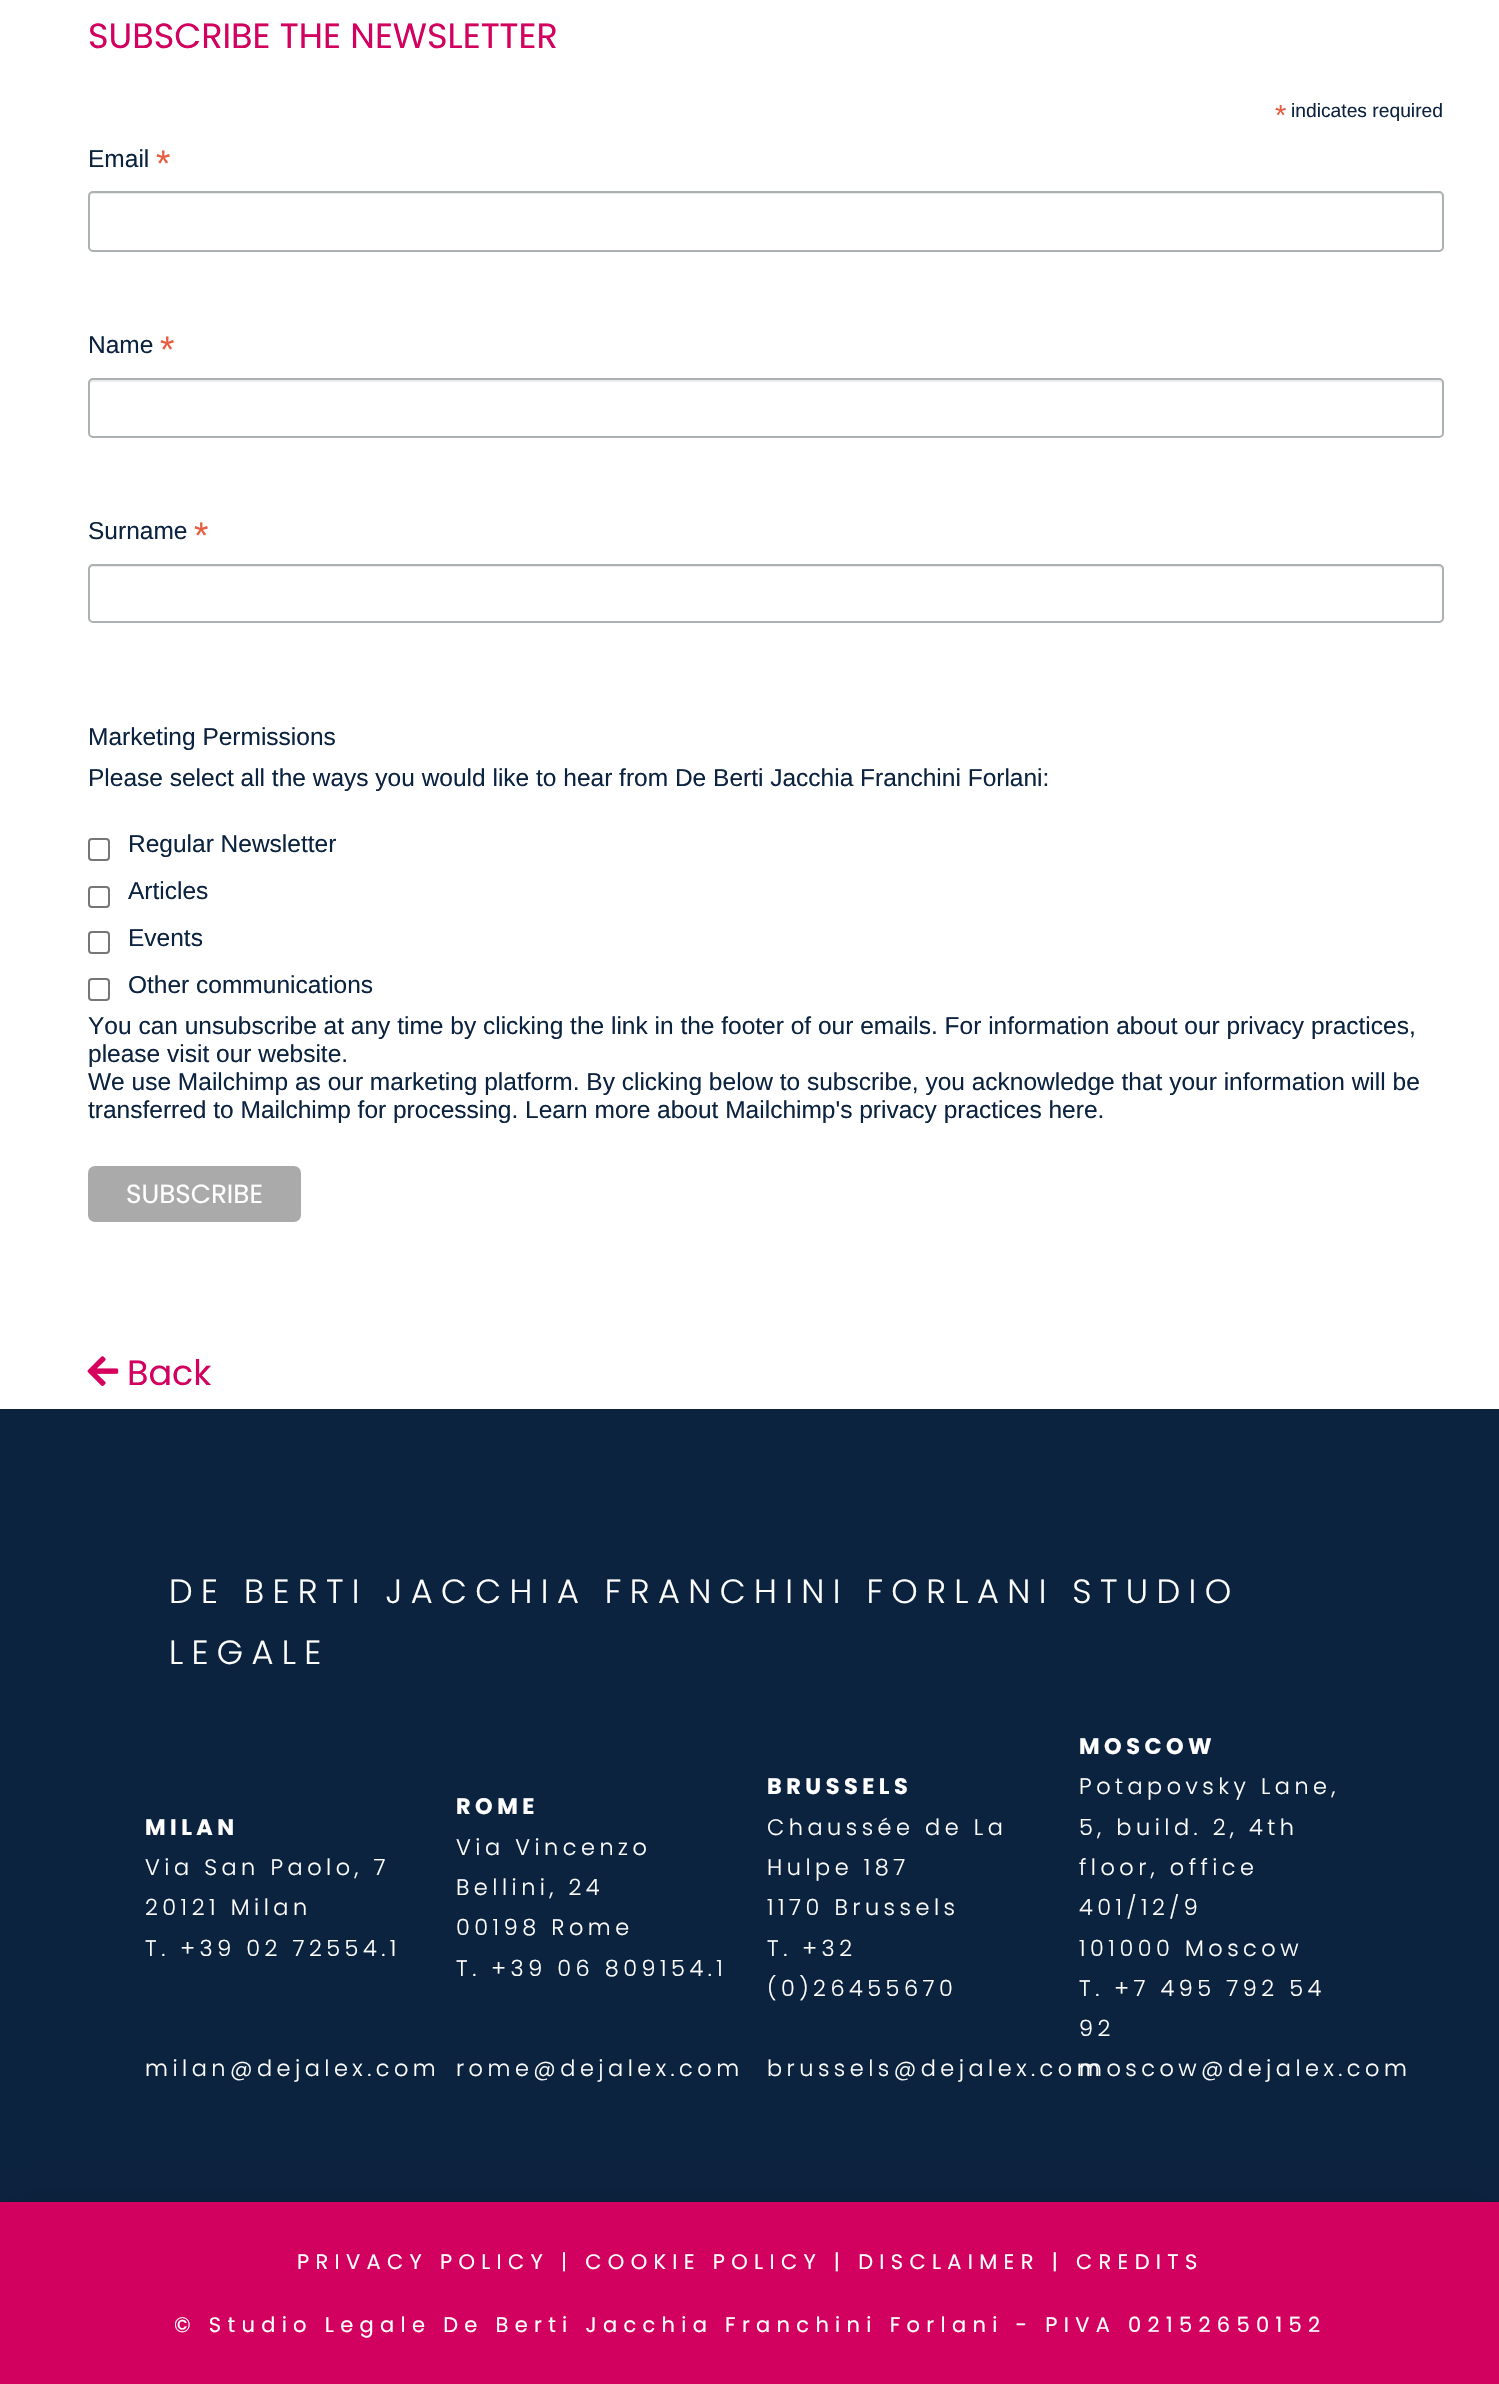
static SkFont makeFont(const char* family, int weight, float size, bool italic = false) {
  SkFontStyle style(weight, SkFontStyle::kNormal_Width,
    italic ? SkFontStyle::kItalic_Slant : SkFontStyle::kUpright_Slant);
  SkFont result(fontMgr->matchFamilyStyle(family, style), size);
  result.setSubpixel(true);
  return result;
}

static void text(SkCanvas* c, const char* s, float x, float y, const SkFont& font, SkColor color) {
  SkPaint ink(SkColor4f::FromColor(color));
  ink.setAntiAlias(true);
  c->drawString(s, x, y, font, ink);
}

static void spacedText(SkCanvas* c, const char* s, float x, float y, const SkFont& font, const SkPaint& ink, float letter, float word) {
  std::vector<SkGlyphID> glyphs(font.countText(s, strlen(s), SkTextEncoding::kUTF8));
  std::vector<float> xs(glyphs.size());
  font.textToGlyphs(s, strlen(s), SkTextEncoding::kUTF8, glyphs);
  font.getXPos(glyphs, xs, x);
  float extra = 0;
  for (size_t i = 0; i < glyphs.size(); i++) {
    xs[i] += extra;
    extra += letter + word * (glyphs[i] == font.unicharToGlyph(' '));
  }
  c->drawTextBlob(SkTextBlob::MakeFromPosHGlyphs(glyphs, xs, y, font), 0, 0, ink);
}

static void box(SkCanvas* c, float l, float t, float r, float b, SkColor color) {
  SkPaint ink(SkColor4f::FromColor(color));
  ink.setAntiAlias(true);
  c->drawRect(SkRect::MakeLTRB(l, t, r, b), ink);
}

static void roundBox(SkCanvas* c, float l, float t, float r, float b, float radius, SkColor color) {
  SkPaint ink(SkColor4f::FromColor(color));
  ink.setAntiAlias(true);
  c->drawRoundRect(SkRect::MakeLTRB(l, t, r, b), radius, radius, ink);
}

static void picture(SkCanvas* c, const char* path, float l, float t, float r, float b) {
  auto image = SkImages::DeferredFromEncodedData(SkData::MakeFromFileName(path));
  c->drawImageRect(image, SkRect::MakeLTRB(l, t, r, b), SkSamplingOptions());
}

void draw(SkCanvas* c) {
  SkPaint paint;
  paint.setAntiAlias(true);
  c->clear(0xffffffff);
  SkFont face1 = makeFont("Poppins", 400, 35);
  text(c, "SUBSCRIBE THE NEWSLETTER", 88, 48, face1, 0xffd2005e);
  SkFont face2 = makeFont("Liberation Sans", 400, 29);
  text(c, "*", 1275, 125, face2, 0xffe85c41);
  SkFont face3 = makeFont("Liberation Sans", 400, 19.25f);
  text(c, "indicates required", 1291, 117, face3, 0xff0c2340);
  SkFont face4 = makeFont("Liberation Sans", 400, 24.5f);
  text(c, "Email", 88, 167, face4, 0xff0c2340);
  SkFont face5 = makeFont("Liberation Sans", 400, 37);
  text(c, "*", 156, 176, face5, 0xffe85c41);
  paint.setColor(0xffececec);
  c->drawPath(SkPathBuilder().moveTo(93, 194).lineTo(1438, 194).cubicTo(1440, 194, 1442, 196, 1442, 198).lineTo(1442, 197).cubicTo(1442, 195, 1440, 193, 1438, 193).lineTo(93, 193).cubicTo(91, 193, 89, 195, 89, 197).lineTo(89, 198).cubicTo(89, 196, 91, 194, 93, 194).close().detach(), paint);
  paint.setStyle(SkPaint::kStroke_Style);
  paint.setStrokeWidth(2);
  paint.setColor(0xffabb0b2);
  c->drawRoundRect(SkRect::MakeLTRB(89, 192, 1443, 251), 4, 4, paint);
  text(c, "Name", 88, 353, face4, 0xff0c2340);
  text(c, "*", 160, 362, face5, 0xffe85c41);
  paint.setStyle(SkPaint::kFill_Style);
  paint.setColor(0xffececec);
  c->drawPath(SkPathBuilder().moveTo(93, 382).lineTo(1438, 382).cubicTo(1440, 382, 1442, 383, 1442, 385).lineTo(1442, 384).cubicTo(1442, 382, 1440, 380, 1438, 380).lineTo(93, 380).cubicTo(91, 380, 89, 382, 89, 384).lineTo(89, 385).cubicTo(89, 383, 91, 382, 93, 382).close().detach(), paint);
  paint.setStyle(SkPaint::kStroke_Style);
  paint.setColor(0xffabb0b2);
  c->drawRoundRect(SkRect::MakeLTRB(89, 379, 1443, 437), 4, 4, paint);
  text(c, "Surname", 88, 539, face4, 0xff0c2340);
  text(c, "*", 194, 548, face5, 0xffe85c41);
  paint.setStyle(SkPaint::kFill_Style);
  paint.setColor(0xffececec);
  c->drawPath(SkPathBuilder().moveTo(93, 567).lineTo(1438, 567).cubicTo(1440, 567, 1442, 569, 1442, 570).lineTo(1442, 569).cubicTo(1442, 567, 1440, 565, 1438, 565).lineTo(93, 565).cubicTo(91, 565, 89, 567, 89, 569).lineTo(89, 570).cubicTo(89, 569, 91, 567, 93, 567).close().detach(), paint);
  paint.setStyle(SkPaint::kStroke_Style);
  paint.setColor(0xffabb0b2);
  c->drawRoundRect(SkRect::MakeLTRB(89, 565, 1443, 622), 4, 4, paint);
  text(c, "Marketing Permissions", 88, 745, face4, 0xff0c2340);
  text(c, "Please select all the ways you would like to hear from De Berti Jacchia Franchini Forlani:", 88, 786, face4, 0xff0c2340);
  paint.setColor(0xff767676);
  c->drawRoundRect(SkRect::MakeLTRB(89, 839, 109, 860), 3, 3, paint);
  text(c, "Regular Newsletter", 128, 852, face4, 0xff0c2340);
  c->drawRoundRect(SkRect::MakeLTRB(89, 887, 109, 907), 3, 3, paint);
  text(c, "Articles", 128, 899, face4, 0xff0c2340);
  c->drawRoundRect(SkRect::MakeLTRB(89, 932, 109, 953), 3, 3, paint);
  text(c, "Events", 128, 946, face4, 0xff0c2340);
  c->drawRoundRect(SkRect::MakeLTRB(89, 979, 109, 1000), 3, 3, paint);
  text(c, "Other communications", 128, 993, face4, 0xff0c2340);
  text(c, "You can unsubscribe at any time by clicking the link in the footer of our emails. For information about our privacy practices,", 88, 1034, face4, 0xff0c2340);
  text(c, "please visit our website.", 88, 1062, face4, 0xff0c2340);
  text(c, "We use Mailchimp as our marketing platform. By clicking below to subscribe, you acknowledge that your information will be", 88, 1090, face4, 0xff0c2340);
  text(c, "transferred to Mailchimp for processing.", 88, 1118, face4, 0xff0c2340);
  text(c, "Learn more about Mailchimp's privacy practices here.", 525, 1118, face4, 0xff0c2340);
  roundBox(c, 88, 1166, 301, 1222, 7, 0xffaaaaaa);
  SkFont face6 = makeFont("Poppins", 400, 26.25f);
  text(c, "SUBSCRIBE", 126, 1203, face6, 0xffffffff);
  picture(c, "img_01.png", 87, 1356, 119, 1386);
  text(c, "Back", 127, 1385, face1, 0xffd2005e);
  box(c, 0, 1409, 1499, 2202, 0xff0c2340);
  SkFont face7 = makeFont("Poppins", 300, 33.6f);
  paint.setStyle(SkPaint::kFill_Style);
  paint.setColor(0xffffffff);
  spacedText(c, "DE BERTI JACCHIA FRANCHINI FORLANI STUDIO", 169, 1603, face7, paint, 8.4f, 0);
  spacedText(c, "LEGALE", 169, 1664, face7, paint, 8.4f, 0);
  SkFont face8 = makeFont("Poppins", 700, 22.4f);
  spacedText(c, "MILAN", 145, 1835, face8, paint, 4.5f, 0);
  SkFont face9 = makeFont("Poppins", 300, 22.4f);
  spacedText(c, "Via San Paolo, 7", 145, 1875, face9, paint, 4.5f, 0);
  spacedText(c, "20121 Milan", 145, 1915, face9, paint, 4.5f, 0);
  spacedText(c, "T. +39 02 72554.1", 145, 1956, face9, paint, 4.5f, 0);
  spacedText(c, "ROME", 456, 1814, face8, paint, 4.5f, 0);
  spacedText(c, "Via Vincenzo", 456, 1855, face9, paint, 4.5f, 0);
  spacedText(c, "Bellini, 24", 456, 1895, face9, paint, 4.5f, 0);
  spacedText(c, "00198 Rome", 456, 1935, face9, paint, 4.5f, 0);
  spacedText(c, "T. +39 06 809154.1", 456, 1976, face9, paint, 4.5f, 0);
  spacedText(c, "BRUSSELS", 767, 1794, face8, paint, 4.5f, 0);
  spacedText(c, "Chaussée de La", 767, 1835, face9, paint, 4.5f, 0);
  spacedText(c, "Hulpe 187", 767, 1875, face9, paint, 4.5f, 0);
  spacedText(c, "1170 Brussels", 767, 1915, face9, paint, 4.5f, 0);
  spacedText(c, "T. +32", 767, 1956, face9, paint, 4.5f, 0);
  spacedText(c, "(0)26455670", 767, 1996, face9, paint, 4.5f, 0);
  spacedText(c, "MOSCOW", 1079, 1754, face8, paint, 4.5f, 0);
  spacedText(c, "Potapovsky Lane,", 1079, 1794, face9, paint, 4.5f, 0);
  spacedText(c, "5, build. 2, 4th", 1079, 1835, face9, paint, 4.5f, 0);
  spacedText(c, "floor, office", 1079, 1875, face9, paint, 4.5f, 0);
  spacedText(c, "401/12/9", 1079, 1915, face9, paint, 4.5f, 0);
  spacedText(c, "101000 Moscow", 1079, 1956, face9, paint, 4.5f, 0);
  spacedText(c, "T. +7 495 792 54", 1079, 1996, face9, paint, 4.5f, 0);
  spacedText(c, "92", 1079, 2036, face9, paint, 4.5f, 0);
  spacedText(c, "milan@dejalex.com", 145, 2076, face9, paint, 4.5f, 0);
  spacedText(c, "rome@dejalex.com", 456, 2076, face9, paint, 4.5f, 0);
  spacedText(c, "brussels@dejalex.com", 767, 2076, face9, paint, 4.5f, 0);
  spacedText(c, "moscow@dejalex.com", 1079, 2076, face9, paint, 4.5f, 0);
  paint.setColor(0x26000000);
  paint.setMaskFilter(SkMaskFilter::MakeBlur(kNormal_SkBlurStyle, 28));
  c->drawRect(SkRect::MakeLTRB(0, 2205, 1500, 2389), paint);
  paint.setMaskFilter(nullptr);
  box(c, 0, 2202, 1499, 2384, 0xffd2005e);
  SkFont face10 = makeFont("Poppins", 400, 21);
  paint.setColor(0xffffffff);
  spacedText(c, "PRIVACY POLICY | COOKIE POLICY | DISCLAIMER | CREDITS", 297, 2269, face10, paint, 6.3f, 0);
  spacedText(c, "© Studio Legale De Berti Jacchia Franchini Forlani - PIVA 02152650152", 174, 2332, face10, paint, 6.3f, 0);
}
